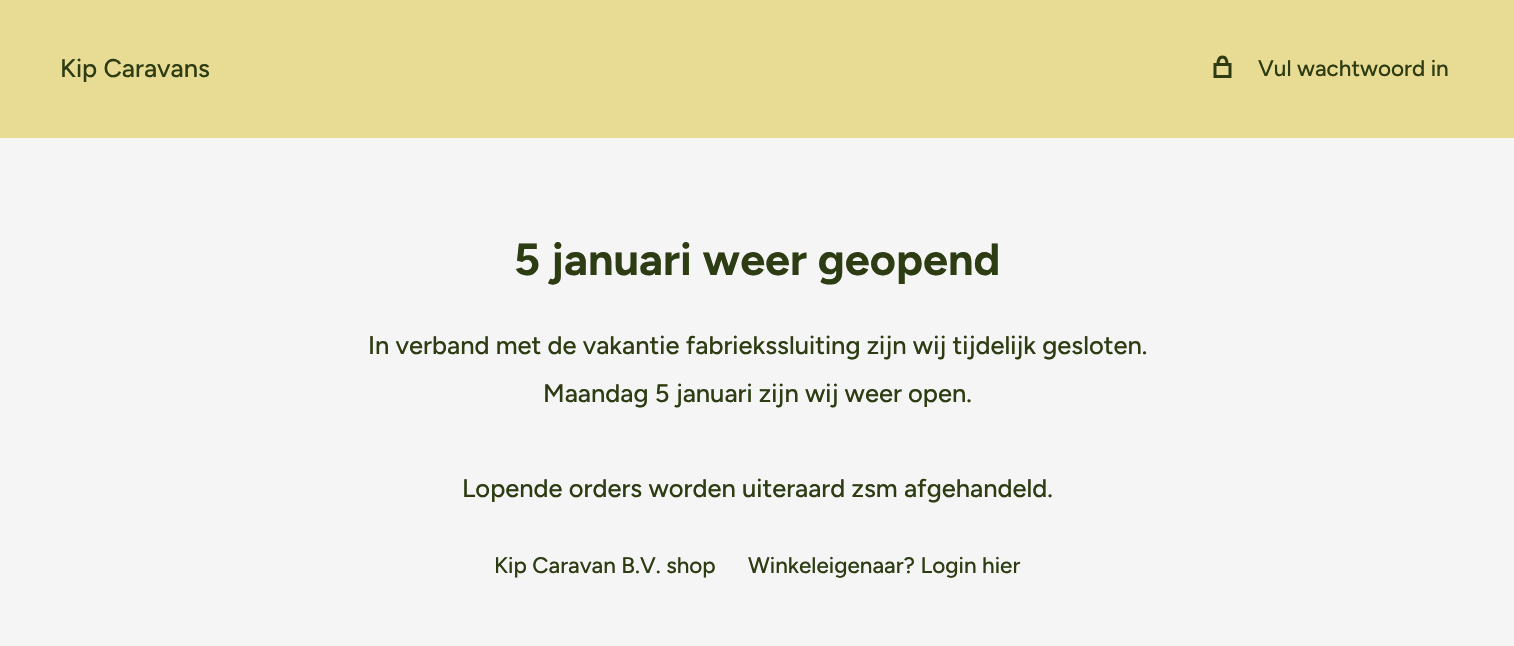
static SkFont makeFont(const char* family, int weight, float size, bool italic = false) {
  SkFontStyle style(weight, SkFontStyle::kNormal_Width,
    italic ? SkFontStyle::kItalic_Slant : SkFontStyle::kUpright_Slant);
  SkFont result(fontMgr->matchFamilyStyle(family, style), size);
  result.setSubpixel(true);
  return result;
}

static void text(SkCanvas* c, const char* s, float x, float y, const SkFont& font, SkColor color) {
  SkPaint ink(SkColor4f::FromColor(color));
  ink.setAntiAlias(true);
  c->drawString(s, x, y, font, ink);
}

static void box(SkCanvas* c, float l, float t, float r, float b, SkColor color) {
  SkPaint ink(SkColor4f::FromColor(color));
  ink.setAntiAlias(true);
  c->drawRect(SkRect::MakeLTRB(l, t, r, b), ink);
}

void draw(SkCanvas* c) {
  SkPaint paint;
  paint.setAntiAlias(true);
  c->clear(0xfff5f5f5);
  box(c, 0, 0, 1514, 138, 0xffe8dc94);
  SkFont face1 = makeFont("Figtree", 500, 25.5f);
  text(c, "Kip Caravans", 60, 77, face1, 0xff2d3c12);
  paint.setStyle(SkPaint::kStroke_Style);
  paint.setStrokeWidth(3);
  paint.setStrokeCap(SkPaint::kSquare_Cap);
  paint.setColor(0xff2d3c12);
  c->drawPath(SkPathBuilder().moveTo(1222.5f, 57).cubicTo(1218, 57, 1218, 61.5f, 1218, 64.5f).lineTo(1227, 64.5f).cubicTo(1227, 61.5f, 1227, 57, 1222.5f, 57).close().moveTo(1215, 64.5f).lineTo(1230, 64.5f).lineTo(1230, 76.5f).lineTo(1215, 76.5f).close().detach(), paint);
  SkFont face2 = makeFont("Figtree", 500, 22.5f);
  text(c, "Vul wachtwoord in", 1258, 76, face2, 0xff2d3c12);
  SkFont face3 = makeFont("Figtree", 700, 45);
  text(c, "5 januari weer geopend", 514, 275, face3, 0xff2d3c12);
  text(c, "In verband met de vakantie fabriekssluiting zijn wij tijdelijk gesloten.", 368, 354, face1, 0xff2d3c12);
  text(c, "Maandag 5 januari zijn wij weer open.", 543, 402, face1, 0xff2d3c12);
  text(c, "Lopende orders worden uiteraard zsm afgehandeld.", 462, 497, face1, 0xff2d3c12);
  text(c, "Kip Caravan B.V. shop", 494, 573, face2, 0xff2d3c12);
  text(c, "Winkeleigenaar? Login hier", 748, 573, face2, 0xff2d3c12);
}
